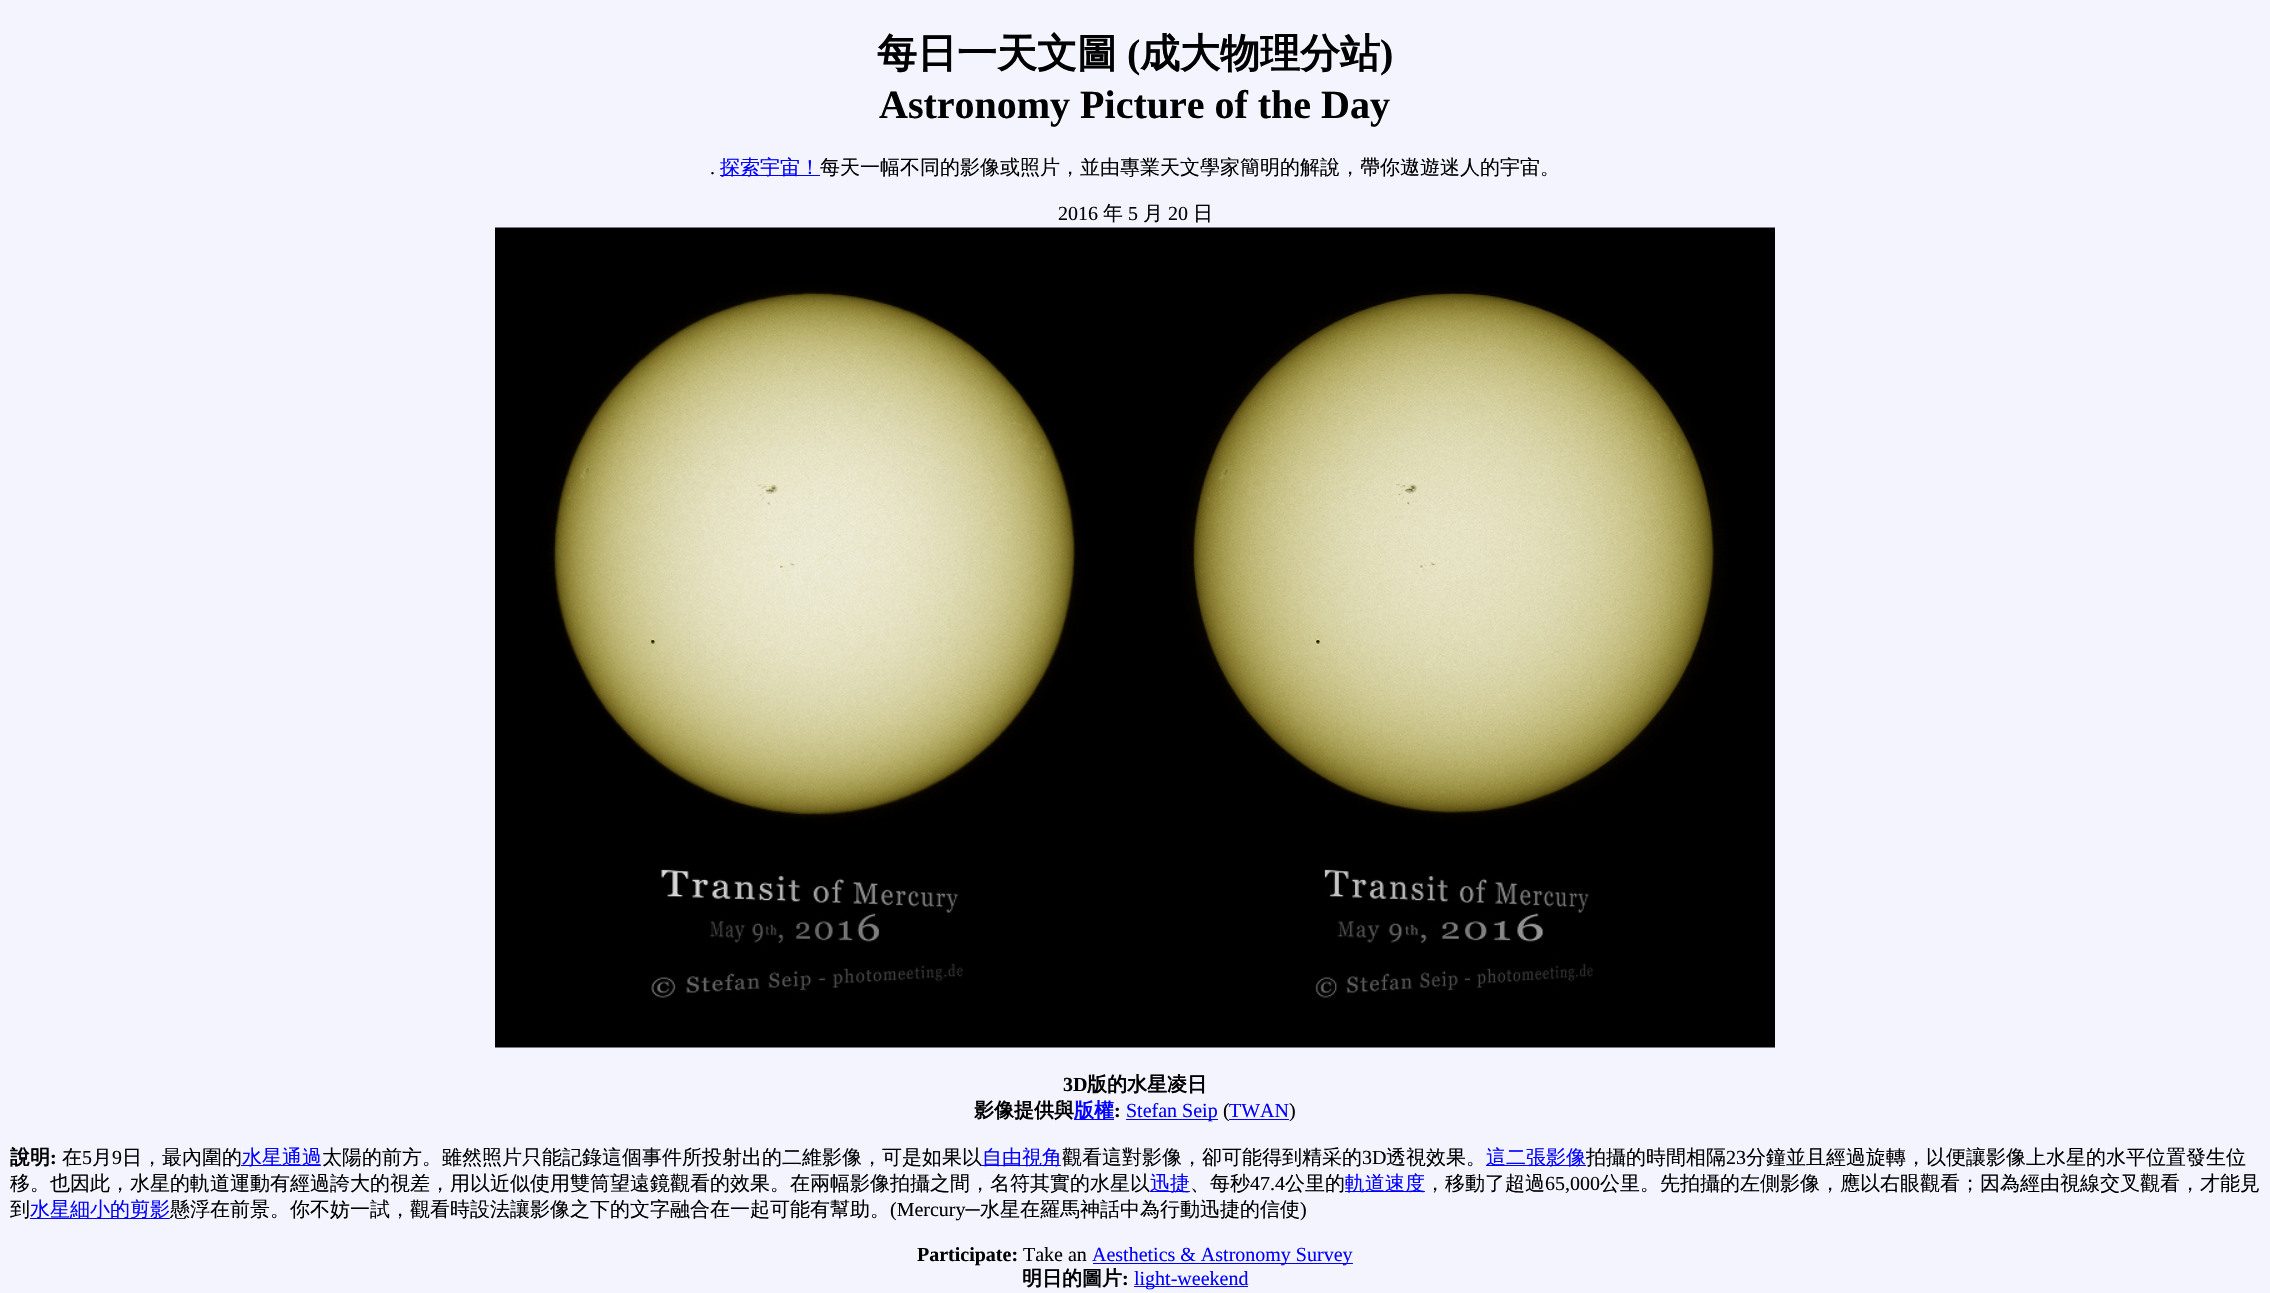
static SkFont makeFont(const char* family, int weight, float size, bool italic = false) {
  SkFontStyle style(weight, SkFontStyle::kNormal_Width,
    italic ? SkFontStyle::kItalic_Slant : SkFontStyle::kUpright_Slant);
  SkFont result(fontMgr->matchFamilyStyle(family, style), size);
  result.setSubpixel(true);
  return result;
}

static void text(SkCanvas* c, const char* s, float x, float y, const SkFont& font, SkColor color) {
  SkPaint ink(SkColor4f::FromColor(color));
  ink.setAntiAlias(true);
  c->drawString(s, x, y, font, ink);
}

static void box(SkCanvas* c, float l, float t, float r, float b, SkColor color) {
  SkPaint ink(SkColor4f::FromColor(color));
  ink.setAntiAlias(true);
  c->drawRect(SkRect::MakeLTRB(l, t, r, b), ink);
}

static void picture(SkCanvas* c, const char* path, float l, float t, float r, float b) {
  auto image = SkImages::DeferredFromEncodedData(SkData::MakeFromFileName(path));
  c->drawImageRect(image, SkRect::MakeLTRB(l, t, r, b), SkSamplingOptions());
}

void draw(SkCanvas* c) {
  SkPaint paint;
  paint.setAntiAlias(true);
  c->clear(0xfff4f4ff);
  SkFont face1 = makeFont("WenQuanYi Zen Hei", 700, 40);
  text(c, "每日一天文圖", 877, 67, face1, 0xff000000);
  SkFont face2 = makeFont("Liberation Serif", 700, 40);
  text(c, "(", 1127, 67, face2, 0xff000000);
  text(c, "成大物理分站", 1140, 67, face1, 0xff000000);
  text(c, ")", 1380, 67, face2, 0xff000000);
  text(c, "Astronomy Picture of the Day", 879, 118, face2, 0xff000000);
  SkFont face3 = makeFont("Liberation Serif", 400, 20);
  text(c, ".", 710, 174, face3, 0xff000000);
  box(c, 720, 175, 820, 176, 0xff0000ff);
  SkFont face4 = makeFont("WenQuanYi Zen Hei", 500, 20);
  text(c, "探索宇宙！", 720, 174, face4, 0xff0000ff);
  text(c, "每天一幅不同的影像或照片，並由專業天文學家簡明的解說，帶你遨遊迷人的宇宙。", 820, 174, face4, 0xff000000);
  text(c, "2016", 1058, 220, face3, 0xff000000);
  text(c, "年", 1103, 220, face4, 0xff000000);
  text(c, "5", 1128, 220, face3, 0xff000000);
  text(c, "月", 1143, 220, face4, 0xff000000);
  text(c, "20", 1168, 220, face3, 0xff000000);
  text(c, "日", 1193, 220, face4, 0xff000000);
  picture(c, "img_01.png", 495, 227, 1775, 1048);
  SkFont face5 = makeFont("Liberation Serif", 700, 20);
  text(c, "3D", 1063, 1091, face5, 0xff000000);
  SkFont face6 = makeFont("WenQuanYi Zen Hei", 700, 20);
  text(c, "版的水星凌日", 1087, 1091, face6, 0xff000000);
  text(c, "影像提供與", 974, 1117, face6, 0xff000000);
  box(c, 1074, 1119, 1114, 1120, 0xff0000ff);
  text(c, "版權", 1074, 1117, face6, 0xff0000ff);
  text(c, ":", 1114, 1117, face5, 0xff000000);
  box(c, 1126, 1119, 1218, 1120, 0xff0000ff);
  text(c, "Stefan Seip", 1126, 1117, face3, 0xff0000ff);
  text(c, "(", 1223, 1117, face3, 0xff000000);
  text(c, "TWAN", 1229, 1117, face3, 0xff0000ff);
  box(c, 1229, 1119, 1289, 1120, 0xff0000ff);
  text(c, ")", 1289, 1117, face3, 0xff000000);
  text(c, "說明", 10, 1164, face6, 0xff000000);
  text(c, ":", 50, 1164, face5, 0xff000000);
  text(c, "在", 62, 1164, face4, 0xff000000);
  text(c, "5", 82, 1164, face3, 0xff000000);
  text(c, "月", 92, 1164, face4, 0xff000000);
  text(c, "9", 112, 1164, face3, 0xff000000);
  text(c, "日，最內圍的", 122, 1164, face4, 0xff000000);
  box(c, 241, 1165, 321, 1166, 0xff0000ff);
  text(c, "水星通過", 242, 1164, face4, 0xff0000ff);
  text(c, "太陽的前方。雖然照片只能記錄這個事件所投射出的二維影像，可是如果以", 322, 1164, face4, 0xff000000);
  box(c, 981, 1165, 1061, 1166, 0xff0000ff);
  text(c, "自由視角", 982, 1164, face4, 0xff0000ff);
  text(c, "觀看這對影像，卻可能得到精采的", 1062, 1164, face4, 0xff000000);
  text(c, "3D", 1362, 1164, face3, 0xff000000);
  text(c, "透視效果。", 1386, 1164, face4, 0xff000000);
  box(c, 1486, 1165, 1586, 1166, 0xff0000ff);
  text(c, "這二張影像", 1486, 1164, face4, 0xff0000ff);
  text(c, "拍攝的時間相隔", 1586, 1164, face4, 0xff000000);
  text(c, "23", 1726, 1164, face3, 0xff000000);
  text(c, "分鐘並且經過旋轉，以便讓影像上水星的水平位置發生位", 1746, 1164, face4, 0xff000000);
  text(c, "移。也因此，水星的軌道運動有經過誇大的視差，用以近似使用雙筒望遠鏡觀看的效果。在兩幅影像拍攝之間，名符其實的水星以", 10, 1190, face4, 0xff000000);
  box(c, 1150, 1191, 1190, 1192, 0xff0000ff);
  text(c, "迅捷", 1150, 1190, face4, 0xff0000ff);
  text(c, "、每秒", 1190, 1190, face4, 0xff000000);
  text(c, "47.4", 1250, 1190, face3, 0xff000000);
  text(c, "公里的", 1285, 1190, face4, 0xff000000);
  box(c, 1345, 1191, 1425, 1192, 0xff0000ff);
  text(c, "軌道速度", 1345, 1190, face4, 0xff0000ff);
  text(c, "，移動了超過", 1425, 1190, face4, 0xff000000);
  text(c, "65,000", 1545, 1190, face3, 0xff000000);
  text(c, "公里。先拍攝的左側影像，應以右眼觀看；因為經由視線交叉觀看，才能見", 1600, 1190, face4, 0xff000000);
  text(c, "到", 10, 1216, face4, 0xff000000);
  box(c, 30, 1218, 170, 1219, 0xff0000ff);
  text(c, "水星細小的剪影", 30, 1216, face4, 0xff0000ff);
  text(c, "懸浮在前景。你不妨一試，觀看時設法讓影像之下的文字融合在一起可能有幫助。", 170, 1216, face4, 0xff000000);
  text(c, "(Mercury─", 890, 1216, face3, 0xff000000);
  text(c, "水星在羅馬神話中為行動迅捷的信使", 980, 1216, face4, 0xff000000);
  text(c, ")", 1300, 1216, face3, 0xff000000);
  text(c, "Participate:", 917, 1261, face5, 0xff000000);
  text(c, "Take an", 1023, 1261, face3, 0xff000000);
  box(c, 1093, 1263, 1353, 1264, 0xff0000ff);
  text(c, "Aesthetics & Astronomy Survey", 1092, 1261, face3, 0xff0000ff);
  text(c, "明日的圖片", 1022, 1285, face6, 0xff000000);
  text(c, ":", 1122, 1285, face5, 0xff000000);
  box(c, 1134, 1286, 1248, 1287, 0xff0000ff);
  text(c, "light-weekend", 1134, 1285, face3, 0xff0000ff);
}
